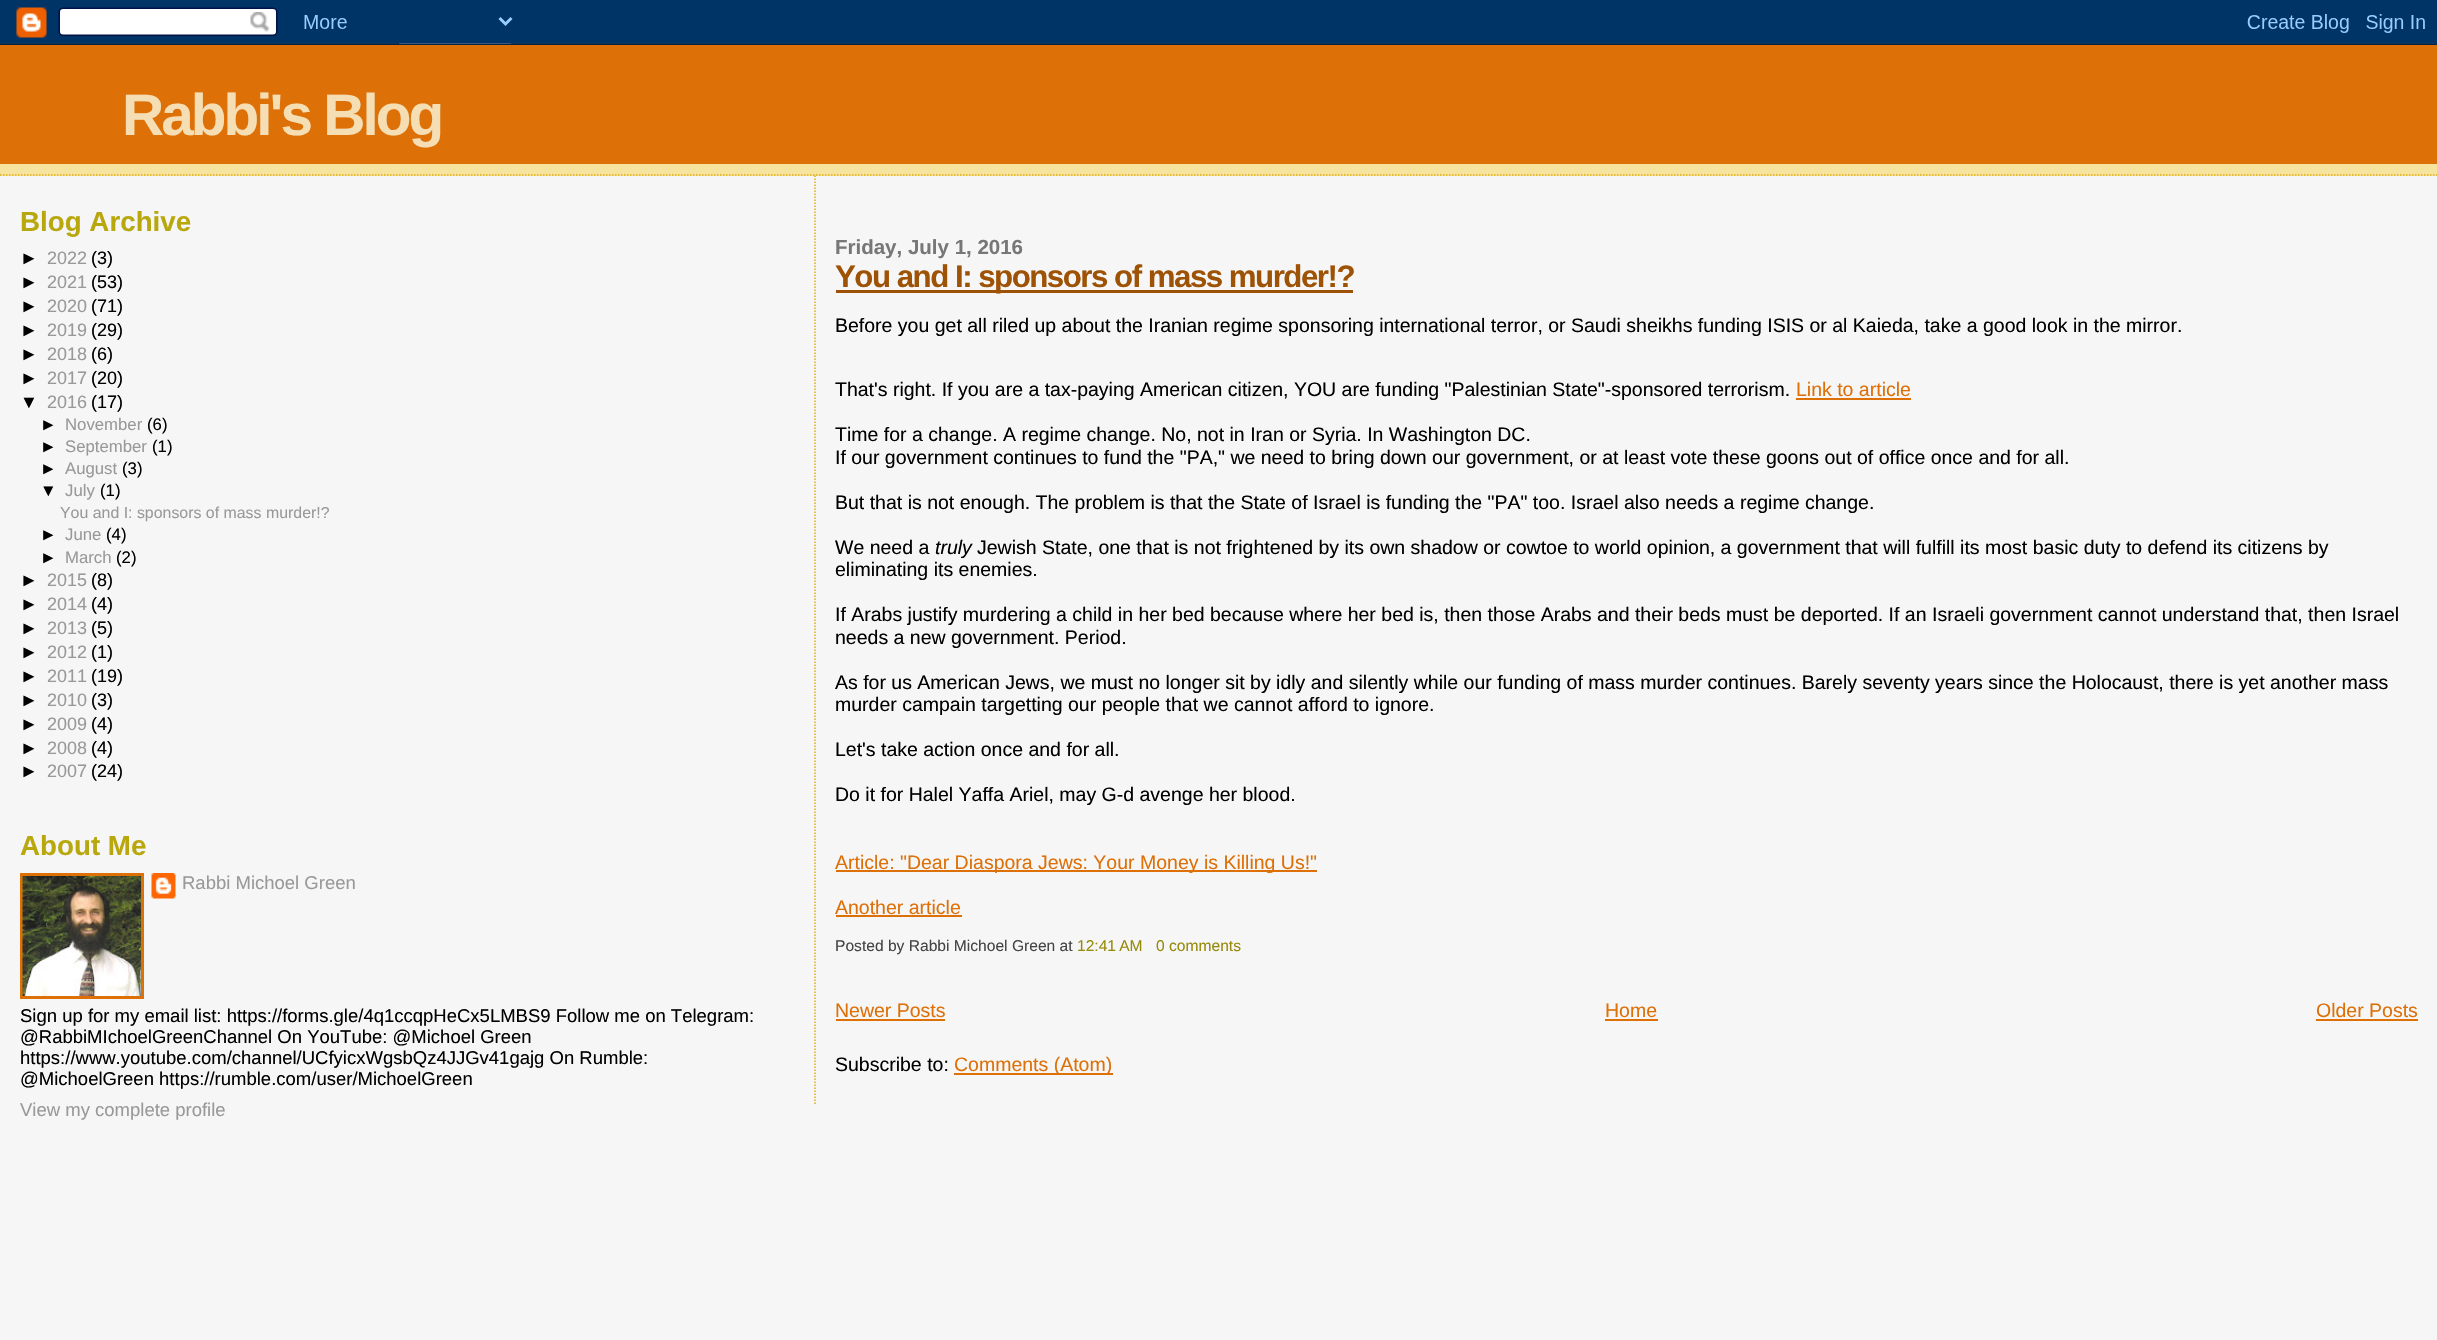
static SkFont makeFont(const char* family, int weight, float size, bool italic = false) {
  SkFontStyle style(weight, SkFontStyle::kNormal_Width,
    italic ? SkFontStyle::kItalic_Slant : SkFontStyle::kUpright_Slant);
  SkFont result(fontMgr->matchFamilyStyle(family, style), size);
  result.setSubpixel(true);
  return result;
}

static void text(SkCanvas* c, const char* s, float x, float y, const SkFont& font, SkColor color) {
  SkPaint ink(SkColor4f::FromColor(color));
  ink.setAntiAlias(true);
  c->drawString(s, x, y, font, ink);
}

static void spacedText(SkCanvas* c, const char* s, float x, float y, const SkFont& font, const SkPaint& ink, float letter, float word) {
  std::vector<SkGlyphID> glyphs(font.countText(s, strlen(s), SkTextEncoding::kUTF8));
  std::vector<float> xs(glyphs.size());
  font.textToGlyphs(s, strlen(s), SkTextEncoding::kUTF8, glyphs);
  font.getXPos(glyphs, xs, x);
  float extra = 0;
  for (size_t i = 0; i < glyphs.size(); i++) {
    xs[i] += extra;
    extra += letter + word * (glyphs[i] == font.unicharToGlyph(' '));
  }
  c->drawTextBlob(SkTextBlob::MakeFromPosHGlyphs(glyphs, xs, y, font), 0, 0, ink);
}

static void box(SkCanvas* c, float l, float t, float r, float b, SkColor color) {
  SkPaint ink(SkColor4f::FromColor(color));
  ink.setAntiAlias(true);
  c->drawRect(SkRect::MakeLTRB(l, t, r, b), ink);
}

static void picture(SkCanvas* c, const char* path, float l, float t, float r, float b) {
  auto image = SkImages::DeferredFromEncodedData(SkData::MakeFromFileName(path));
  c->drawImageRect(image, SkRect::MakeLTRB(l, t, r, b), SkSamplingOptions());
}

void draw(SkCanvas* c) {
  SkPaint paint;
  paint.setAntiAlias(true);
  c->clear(0xfff6f6f6);
  picture(c, "img_01.png", 0, 0, 2437, 45);
  box(c, 0, 164, 2437, 176, 0xfff5e39e);
  paint.setStyle(SkPaint::kStroke_Style);
  paint.setStrokeWidth(1.5f);
  paint.setColor(0xffe0ad12);
  paint.setPathEffect(SkDashPathEffect::Make({{1.5f, 1.5f}}, 0));
  c->drawPath(SkPathBuilder().moveTo(0, 175).lineTo(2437.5f, 175).detach(), paint);
  paint.setPathEffect(nullptr);
  box(c, 0, 45, 2437, 164, 0xffde7008);
  SkFont face1 = makeFont("Liberation Sans", 700, 58.5f);
  paint.setStyle(SkPaint::kFill_Style);
  paint.setColor(0xfff5deb3);
  spacedText(c, "Rabbi's Blog", 122, 135, face1, paint, -3, 0);
  SkFont face2 = makeFont("Liberation Sans", 700, 27.75f);
  text(c, "Blog Archive", 20, 231, face2, 0xffb8a80d);
  SkFont face3 = makeFont("Liberation Sans", 400, 18);
  text(c, "►", 20, 264, face3, 0xff000000);
  text(c, "2022", 47, 264, face3, 0xff999999);
  text(c, "(3)", 91, 264, face3, 0xff000000);
  text(c, "►", 20, 288, face3, 0xff000000);
  text(c, "2021", 47, 288, face3, 0xff999999);
  text(c, "(53)", 91, 288, face3, 0xff000000);
  text(c, "►", 20, 312, face3, 0xff000000);
  text(c, "2020", 47, 312, face3, 0xff999999);
  text(c, "(71)", 91, 312, face3, 0xff000000);
  text(c, "►", 20, 336, face3, 0xff000000);
  text(c, "2019", 47, 336, face3, 0xff999999);
  text(c, "(29)", 91, 336, face3, 0xff000000);
  text(c, "►", 20, 360, face3, 0xff000000);
  text(c, "2018", 47, 360, face3, 0xff999999);
  text(c, "(6)", 91, 360, face3, 0xff000000);
  text(c, "►", 20, 384, face3, 0xff000000);
  text(c, "2017", 47, 384, face3, 0xff999999);
  text(c, "(20)", 91, 384, face3, 0xff000000);
  text(c, "▼", 20, 408, face3, 0xff000000);
  text(c, "2016", 47, 408, face3, 0xff999999);
  text(c, "(17)", 91, 408, face3, 0xff000000);
  SkFont face4 = makeFont("Liberation Sans", 400, 16.75f);
  text(c, "►", 40, 430, face4, 0xff000000);
  text(c, "November", 65, 430, face4, 0xff999999);
  text(c, "(6)", 147, 430, face4, 0xff000000);
  text(c, "►", 40, 452, face4, 0xff000000);
  text(c, "September", 65, 452, face4, 0xff999999);
  text(c, "(1)", 152, 452, face4, 0xff000000);
  text(c, "►", 40, 474, face4, 0xff000000);
  text(c, "August", 65, 474, face4, 0xff999999);
  text(c, "(3)", 122, 474, face4, 0xff000000);
  text(c, "▼", 40, 496, face4, 0xff000000);
  text(c, "July", 65, 496, face4, 0xff999999);
  text(c, "(1)", 100, 496, face4, 0xff000000);
  SkFont face5 = makeFont("Liberation Sans", 400, 15.9f);
  text(c, "You and I: sponsors of mass murder!?", 60, 518, face5, 0xff999999);
  text(c, "►", 40, 540, face4, 0xff000000);
  text(c, "June", 65, 540, face4, 0xff999999);
  text(c, "(4)", 106, 540, face4, 0xff000000);
  text(c, "►", 40, 563, face4, 0xff000000);
  text(c, "March", 65, 563, face4, 0xff999999);
  text(c, "(2)", 116, 563, face4, 0xff000000);
  text(c, "►", 20, 586, face3, 0xff000000);
  text(c, "2015", 47, 586, face3, 0xff999999);
  text(c, "(8)", 91, 586, face3, 0xff000000);
  text(c, "►", 20, 610, face3, 0xff000000);
  text(c, "2014", 47, 610, face3, 0xff999999);
  text(c, "(4)", 91, 610, face3, 0xff000000);
  text(c, "►", 20, 634, face3, 0xff000000);
  text(c, "2013", 47, 634, face3, 0xff999999);
  text(c, "(5)", 91, 634, face3, 0xff000000);
  text(c, "►", 20, 658, face3, 0xff000000);
  text(c, "2012", 47, 658, face3, 0xff999999);
  text(c, "(1)", 91, 658, face3, 0xff000000);
  text(c, "►", 20, 682, face3, 0xff000000);
  text(c, "2011", 47, 682, face3, 0xff999999);
  text(c, "(19)", 91, 682, face3, 0xff000000);
  text(c, "►", 20, 706, face3, 0xff000000);
  text(c, "2010", 47, 706, face3, 0xff999999);
  text(c, "(3)", 91, 706, face3, 0xff000000);
  text(c, "►", 20, 730, face3, 0xff000000);
  text(c, "2009", 47, 730, face3, 0xff999999);
  text(c, "(4)", 91, 730, face3, 0xff000000);
  text(c, "►", 20, 754, face3, 0xff000000);
  text(c, "2008", 47, 754, face3, 0xff999999);
  text(c, "(4)", 91, 754, face3, 0xff000000);
  text(c, "►", 20, 777, face3, 0xff000000);
  text(c, "2007", 47, 777, face3, 0xff999999);
  text(c, "(24)", 91, 777, face3, 0xff000000);
  text(c, "About Me", 20, 855, face2, 0xffb8a80d);
  paint.setStyle(SkPaint::kStroke_Style);
  paint.setStrokeWidth(3);
  paint.setColor(0xffde7008);
  c->drawRect(SkRect::MakeLTRB(21.5f, 874.5f, 142.5f, 997.5f), paint);
  picture(c, "img_02.png", 22, 876, 141, 996);
  picture(c, "img_03.png", 151, 873, 176, 899);
  SkFont face6 = makeFont("Liberation Sans", 400, 18.5f);
  text(c, "Rabbi Michoel Green", 182, 889, face6, 0xff999999);
  text(c, "Sign up for my email list: https://forms.gle/4q1ccqpHeCx5LMBS9 Follow me on Telegram:", 20, 1022, face6, 0xff000000);
  text(c, "@RabbiMIchoelGreenChannel On YouTube: @Michoel Green", 20, 1043, face6, 0xff000000);
  text(c, "https://www.youtube.com/channel/UCfyicxWgsbQz4JJGv41gajg On Rumble:", 20, 1064, face6, 0xff000000);
  text(c, "@MichoelGreen https://rumble.com/user/MichoelGreen", 20, 1085, face6, 0xff000000);
  text(c, "View my complete profile", 20, 1116, face6, 0xff999999);
  paint.setStrokeWidth(1.5f);
  paint.setColor(0xffe0ad12);
  paint.setPathEffect(SkDashPathEffect::Make({{1.5f, 1.5f}}, 0));
  c->drawPath(SkPathBuilder().moveTo(815, 175.5f).lineTo(815, 1105.5f).detach(), paint);
  paint.setPathEffect(nullptr);
  SkFont face7 = makeFont("Liberation Sans", 700, 20.5f);
  text(c, "Friday, July 1, 2016", 835, 254, face7, 0xff777777);
  box(c, 836, 290, 1353, 293, 0xff9e5205);
  SkFont face8 = makeFont("Liberation Sans", 700, 31.25f);
  paint.setStyle(SkPaint::kFill_Style);
  paint.setColor(0xff9e5205);
  spacedText(c, "You and I: sponsors of mass murder!?", 835, 287, face8, paint, -1.5f, 0);
  SkFont face9 = makeFont("Liberation Sans", 400, 19.5f);
  text(c, "Before you get all riled up about the Iranian regime sponsoring international terror, or Saudi sheikhs funding ISIS or al Kaieda, take a good look in the mirror.", 835, 332, face9, 0xff000000);
  text(c, "That's right. If you are a tax-paying American citizen, YOU are funding \"Palestinian State\"-sponsored terrorism.", 835, 396, face9, 0xff000000);
  text(c, "Link to article", 1796, 396, face9, 0xffde7008);
  box(c, 1796, 398, 1911, 400, 0xffde7008);
  text(c, "Time for a change. A regime change. No, not in Iran or Syria. In Washington DC.", 835, 441, face9, 0xff000000);
  text(c, "If our government continues to fund the \"PA,\" we need to bring down our government, or at least vote these goons out of office once and for all.", 835, 464, face9, 0xff000000);
  text(c, "But that is not enough. The problem is that the State of Israel is funding the \"PA\" too. Israel also needs a regime change.", 835, 509, face9, 0xff000000);
  text(c, "We need a", 835, 554, face9, 0xff000000);
  SkFont face10 = makeFont("Liberation Sans", 400, 19.5f, true);
  text(c, "truly", 935, 554, face10, 0xff000000);
  text(c, "Jewish State, one that is not frightened by its own shadow or cowtoe to world opinion, a government that will fulfill its most basic duty to defend its citizens by", 977, 554, face9, 0xff000000);
  text(c, "eliminating its enemies.", 835, 576, face9, 0xff000000);
  text(c, "If Arabs justify murdering a child in her bed because where her bed is, then those Arabs and their beds must be deported. If an Israeli government cannot understand that, then Israel", 835, 621, face9, 0xff000000);
  text(c, "needs a new government. Period.", 835, 644, face9, 0xff000000);
  text(c, "As for us American Jews, we must no longer sit by idly and silently while our funding of mass murder continues. Barely seventy years since the Holocaust, there is yet another mass", 835, 689, face9, 0xff000000);
  text(c, "murder campain targetting our people that we cannot afford to ignore.", 835, 711, face9, 0xff000000);
  text(c, "Let's take action once and for all.", 835, 756, face9, 0xff000000);
  text(c, "Do it for Halel Yaffa Ariel, may G-d avenge her blood.", 835, 801, face9, 0xff000000);
  box(c, 836, 870, 1317, 872, 0xffde7008);
  text(c, "Article: \"Dear Diaspora Jews: Your Money is Killing Us!\"", 835, 869, face9, 0xffde7008);
  text(c, "Another article", 835, 914, face9, 0xffde7008);
  box(c, 836, 915, 962, 917, 0xffde7008);
  SkFont face11 = makeFont("Liberation Sans", 400, 15.6f);
  text(c, "Posted by Rabbi Michoel Green at", 835, 951, face11, 0xff444444);
  text(c, "12:41 AM", 1077, 951, face11, 0xff968a0a);
  text(c, "0 comments", 1156, 951, face11, 0xff968a0a);
  text(c, "Newer Posts", 835, 1017, face9, 0xffde7008);
  box(c, 836, 1019, 945, 1021, 0xffde7008);
  text(c, "Home", 1605, 1017, face9, 0xffde7008);
  box(c, 1605, 1019, 1658, 1021, 0xffde7008);
  text(c, "Older Posts", 2316, 1017, face9, 0xffde7008);
  box(c, 2316, 1019, 2418, 1021, 0xffde7008);
  text(c, "Subscribe to:", 835, 1071, face9, 0xff000000);
  box(c, 954, 1073, 1113, 1075, 0xffde7008);
  text(c, "Comments (Atom)", 954, 1071, face9, 0xffde7008);
}
